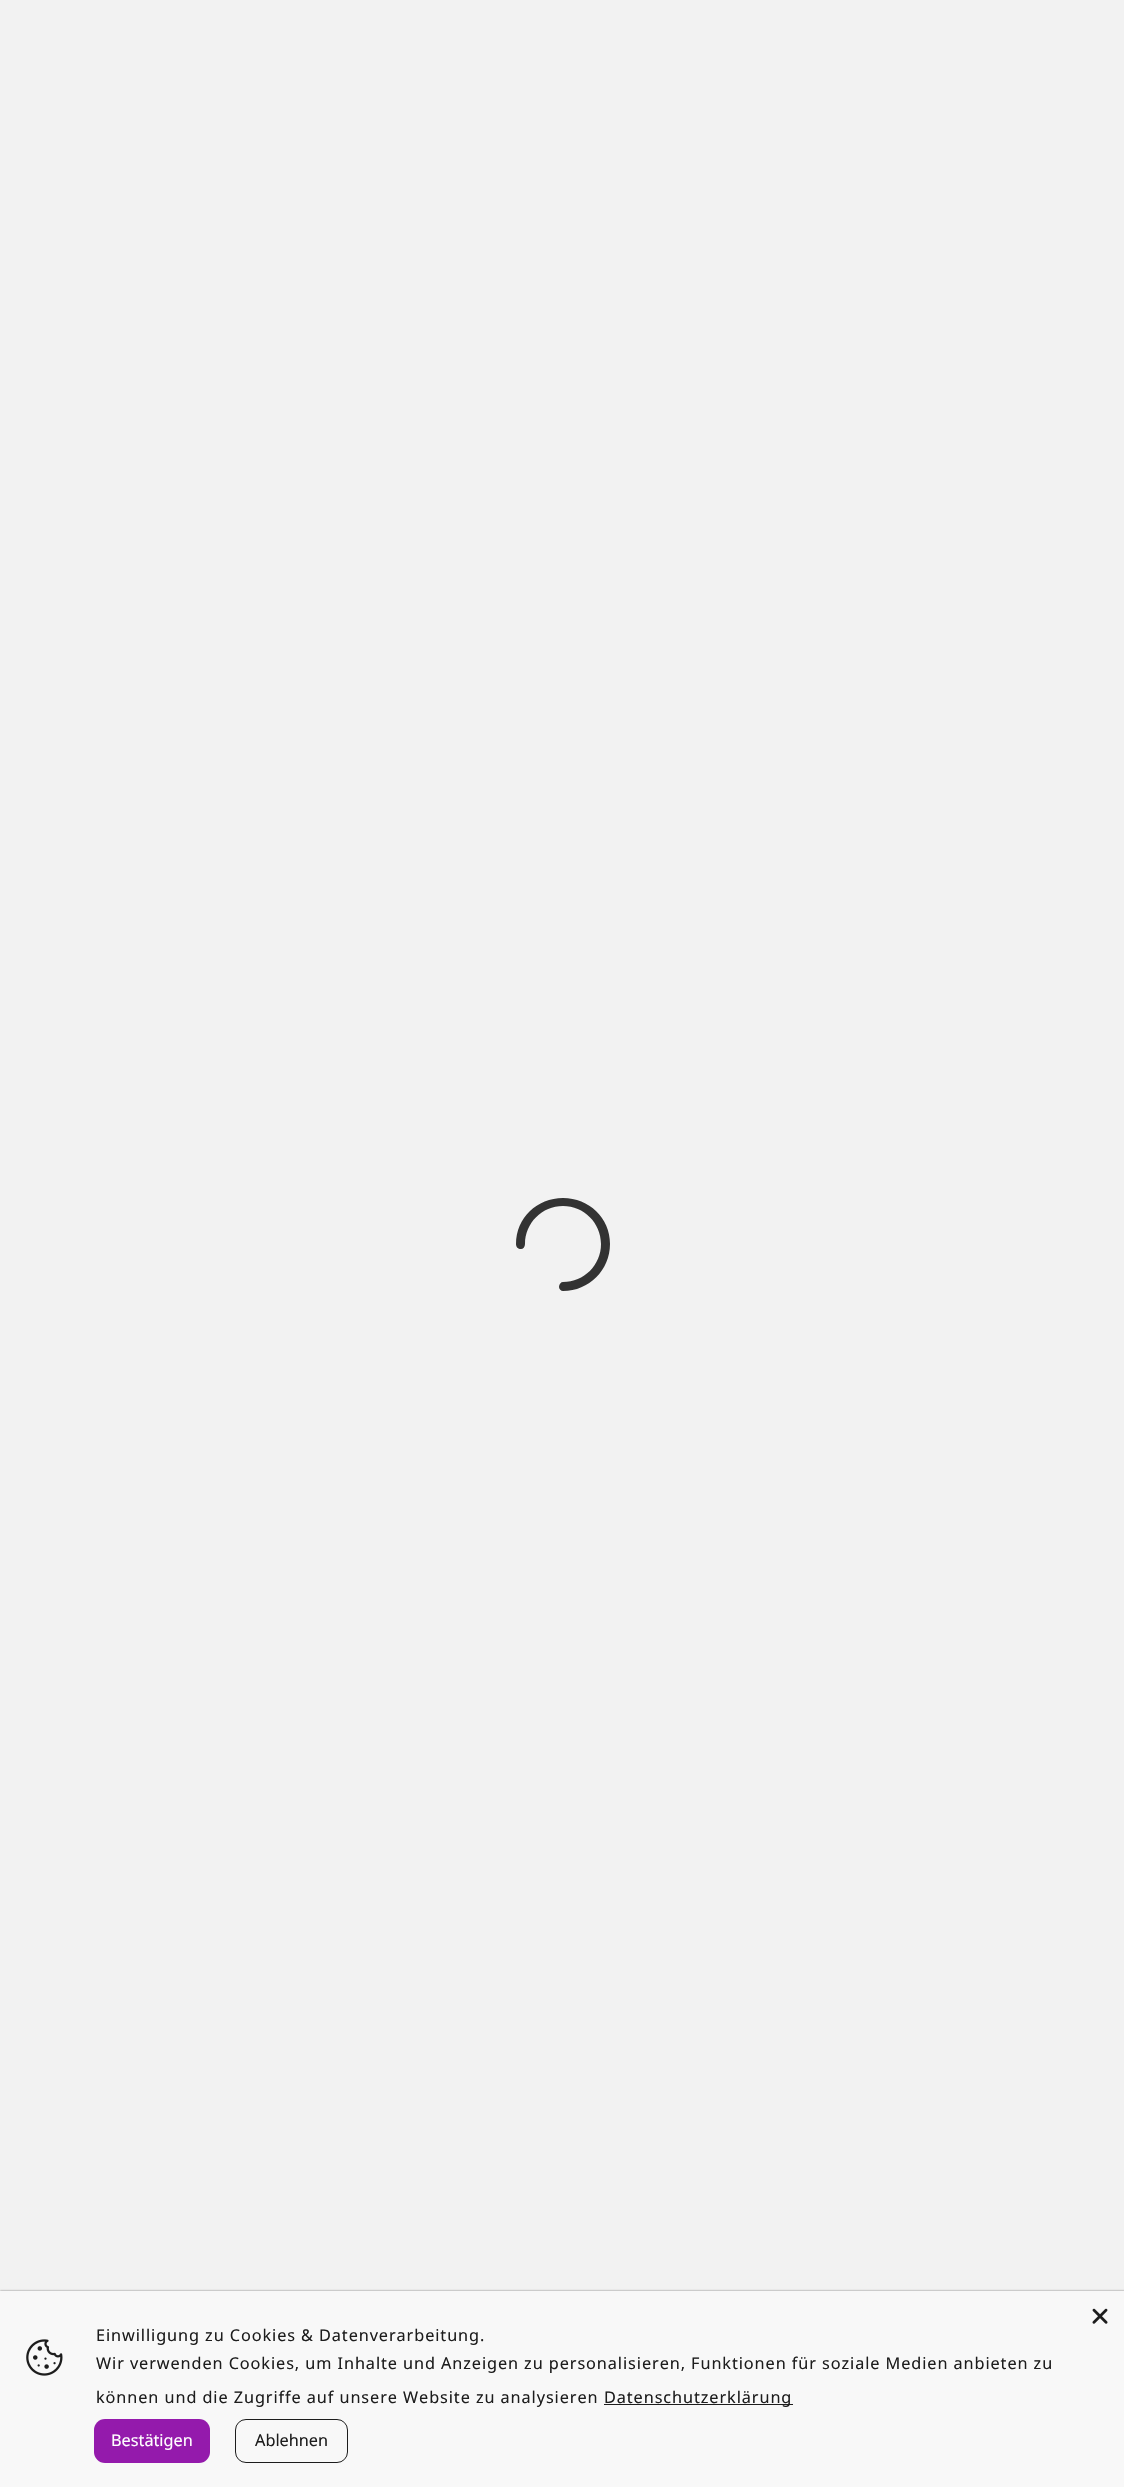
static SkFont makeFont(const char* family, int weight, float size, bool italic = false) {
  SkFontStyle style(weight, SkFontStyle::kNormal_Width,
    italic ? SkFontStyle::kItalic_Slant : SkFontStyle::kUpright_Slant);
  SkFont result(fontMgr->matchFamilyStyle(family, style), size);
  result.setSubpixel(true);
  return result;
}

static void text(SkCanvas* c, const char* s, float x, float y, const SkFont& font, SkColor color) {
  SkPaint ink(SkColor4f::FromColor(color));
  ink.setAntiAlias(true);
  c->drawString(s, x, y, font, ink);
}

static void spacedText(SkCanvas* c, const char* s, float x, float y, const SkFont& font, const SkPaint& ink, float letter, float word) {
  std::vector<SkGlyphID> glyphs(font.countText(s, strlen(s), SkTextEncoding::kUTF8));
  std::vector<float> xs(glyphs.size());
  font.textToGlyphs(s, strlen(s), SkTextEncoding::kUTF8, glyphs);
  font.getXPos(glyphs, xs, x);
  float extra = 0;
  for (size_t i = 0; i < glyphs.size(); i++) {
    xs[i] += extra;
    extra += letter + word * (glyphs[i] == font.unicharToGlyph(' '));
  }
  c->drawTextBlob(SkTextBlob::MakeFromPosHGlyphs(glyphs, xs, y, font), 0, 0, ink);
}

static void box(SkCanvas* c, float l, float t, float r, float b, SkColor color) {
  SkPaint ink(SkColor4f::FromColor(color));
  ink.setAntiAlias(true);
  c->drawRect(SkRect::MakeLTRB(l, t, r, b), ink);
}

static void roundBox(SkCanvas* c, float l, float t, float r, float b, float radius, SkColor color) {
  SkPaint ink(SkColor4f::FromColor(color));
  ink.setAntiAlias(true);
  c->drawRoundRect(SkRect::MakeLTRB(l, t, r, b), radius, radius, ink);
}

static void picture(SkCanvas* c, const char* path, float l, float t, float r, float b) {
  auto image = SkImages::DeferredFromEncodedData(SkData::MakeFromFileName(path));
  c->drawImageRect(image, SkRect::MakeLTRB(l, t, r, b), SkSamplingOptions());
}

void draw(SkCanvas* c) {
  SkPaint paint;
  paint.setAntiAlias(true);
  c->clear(0xfff2f2f2);
  paint.setColor(0xff333333);
  c->drawPath(SkPathBuilder().moveTo(563, 1206).cubicTo(542, 1206, 525, 1223, 525, 1244).cubicTo(525, 1247, 523, 1249, 521, 1249).cubicTo(518, 1249, 516, 1247, 516, 1244).cubicTo(516, 1218, 537, 1198, 563, 1198).cubicTo(589, 1198, 610, 1218, 610, 1244).cubicTo(610, 1270, 589, 1291, 563, 1291).cubicTo(561, 1291, 559, 1289, 559, 1287).cubicTo(559, 1284, 561, 1282, 563, 1282).cubicTo(584, 1282, 601, 1265, 601, 1244).cubicTo(601, 1223, 584, 1206, 563, 1206).close().detach(), paint);
  paint.setColor(0x80000000);
  paint.setMaskFilter(SkMaskFilter::MakeBlur(kNormal_SkBlurStyle, 1));
  c->drawRect(SkRect::MakeLTRB(0, 2291, 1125, 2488), paint);
  paint.setMaskFilter(nullptr);
  box(c, 0, 2291, 1124, 2487, 0xfff8f8f8);
  picture(c, "img_01.png", 1092, 2308, 1108, 2324);
  picture(c, "img_02.png", 26, 2339, 63, 2376);
  SkFont face1 = makeFont("Noto Sans", 400, 16.25f);
  paint.setColor(0xff1d1d1d);
  spacedText(c, "Einwilligung zu Cookies & Datenverarbeitung.", 96, 2341, face1, paint, 0.92f, 0);
  spacedText(c, "Wir verwenden Cookies, um Inhalte und Anzeigen zu personalisieren, Funktionen für soziale Medien anbieten zu", 96, 2369, face1, paint, 0.92f, 0);
  spacedText(c, "können und die Zugriffe auf unsere Website zu analysieren", 96, 2403, face1, paint, 0.92f, 0);
  box(c, 604, 2404, 793, 2405, 0xff1d1d1d);
  spacedText(c, "Datenschutzerklärung", 604, 2403, face1, paint, 0.92f, 0);
  roundBox(c, 94, 2419, 210, 2463, 11, 0xff941aac);
  text(c, "Bestätigen", 111, 2446, face1, 0xffffffff);
  paint.setStyle(SkPaint::kStroke_Style);
  paint.setStrokeWidth(1);
  c->drawRoundRect(SkRect::MakeLTRB(235.5f, 2419.5f, 347.5f, 2462.5f), 10.5f, 10.5f, paint);
  text(c, "Ablehnen", 255, 2446, face1, 0xff1d1d1d);
}
